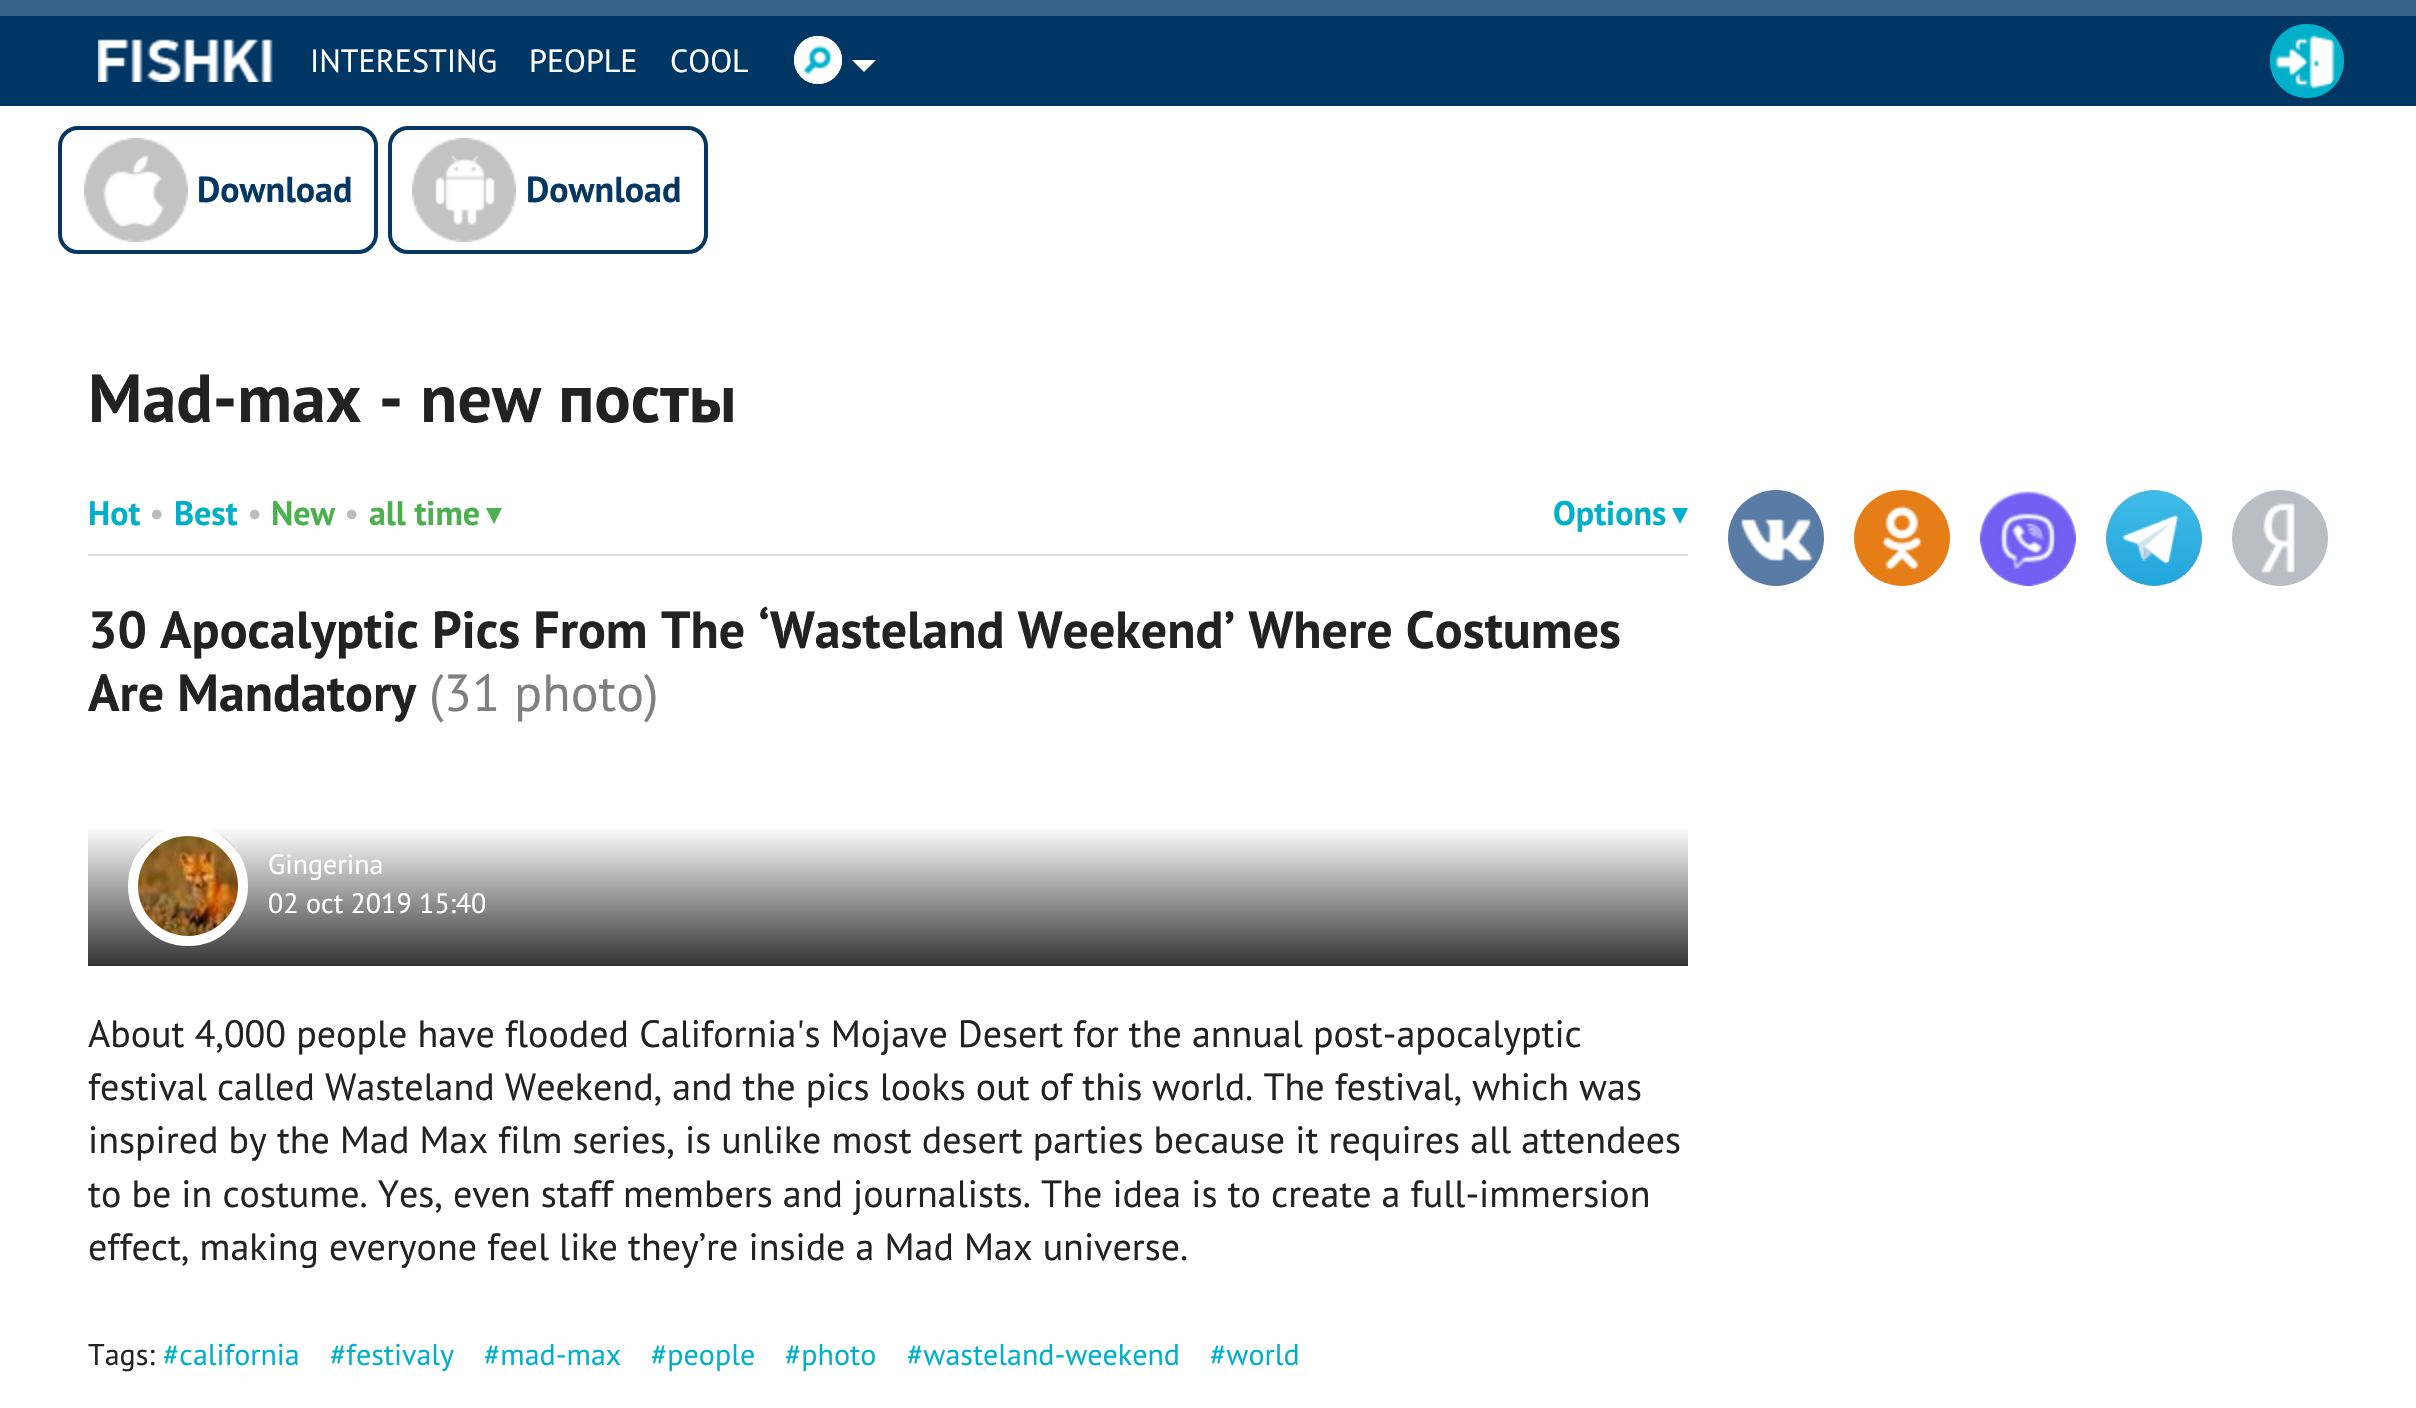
static SkFont makeFont(const char* family, int weight, float size, bool italic = false) {
  SkFontStyle style(weight, SkFontStyle::kNormal_Width,
    italic ? SkFontStyle::kItalic_Slant : SkFontStyle::kUpright_Slant);
  SkFont result(fontMgr->matchFamilyStyle(family, style), size);
  result.setSubpixel(true);
  return result;
}

static void text(SkCanvas* c, const char* s, float x, float y, const SkFont& font, SkColor color) {
  SkPaint ink(SkColor4f::FromColor(color));
  ink.setAntiAlias(true);
  c->drawString(s, x, y, font, ink);
}

static void box(SkCanvas* c, float l, float t, float r, float b, SkColor color) {
  SkPaint ink(SkColor4f::FromColor(color));
  ink.setAntiAlias(true);
  c->drawRect(SkRect::MakeLTRB(l, t, r, b), ink);
}

static void picture(SkCanvas* c, const char* path, float l, float t, float r, float b) {
  auto image = SkImages::DeferredFromEncodedData(SkData::MakeFromFileName(path));
  c->drawImageRect(image, SkRect::MakeLTRB(l, t, r, b), SkSamplingOptions());
}

void draw(SkCanvas* c) {
  SkPaint paint;
  paint.setAntiAlias(true);
  c->clear(0xffffffff);
  box(c, 0, 16, 2416, 106, 0xff003663);
  box(c, 0, 0, 2416, 16, 0xff376186);
  picture(c, "img_01.png", 98, 39, 273, 82);
  SkFont face1 = makeFont("PT Sans", 400, 32);
  text(c, "INTERESTING", 310, 72, face1, 0xffffffff);
  text(c, "PEOPLE", 529, 72, face1, 0xffffffff);
  text(c, "COOL", 670, 72, face1, 0xffffffff);
  paint.setColor(0xffffffff);
  c->drawCircle(818, 60, 24, paint);
  picture(c, "img_02.png", 803, 45, 833, 75);
  paint.setStyle(SkPaint::kStroke_Style);
  paint.setStrokeWidth(4);
  c->drawCircle(818, 60, 22, paint);
  paint.setStyle(SkPaint::kFill_Style);
  c->drawPath(SkPathBuilder().moveTo(852, 60).lineTo(876, 60).lineTo(864, 72).close().detach(), paint);
  paint.setColor(0xff00afc9);
  c->drawCircle(2307, 61, 37, paint);
  picture(c, "img_03.png", 2275, 35, 2338, 89);
  paint.setStyle(SkPaint::kStroke_Style);
  c->drawCircle(2307, 61, 35, paint);
  paint.setColor(0xff043761);
  c->drawRoundRect(SkRect::MakeLTRB(60, 128, 376, 252), 18, 18, paint);
  picture(c, "img_04.png", 84, 138, 188, 242);
  SkFont face2 = makeFont("PT Sans", 700, 36);
  text(c, "Download", 197, 202, face2, 0xff043761);
  c->drawRoundRect(SkRect::MakeLTRB(390, 128, 706, 252), 18, 18, paint);
  picture(c, "img_05.png", 412, 138, 516, 242);
  text(c, "Download", 526, 202, face2, 0xff043761);
  SkFont face3 = makeFont("PT Sans", 700, 68);
  text(c, "Mad-max - new посты", 88, 422, face3, 0xff222222);
  box(c, 88, 554, 1688, 556, 0xffe0e0e0);
  SkFont face4 = makeFont("PT Sans", 700, 34);
  text(c, "Hot", 88, 525, face4, 0xff00afc9);
  SkFont face5 = makeFont("PT Sans", 400, 34);
  text(c, "•", 149, 525, face5, 0xffbdbdbd);
  text(c, "Best", 174, 525, face4, 0xff00afc9);
  text(c, "•", 247, 525, face5, 0xffbdbdbd);
  text(c, "New", 271, 525, face4, 0xff4caf50);
  text(c, "•", 344, 525, face5, 0xffbdbdbd);
  text(c, "all time", 369, 525, face4, 0xff4caf50);
  paint.setStyle(SkPaint::kFill_Style);
  paint.setColor(0xff4caf50);
  c->drawPath(SkPathBuilder().moveTo(486, 508).lineTo(502, 508).lineTo(494, 524).close().detach(), paint);
  text(c, "Options", 1553, 525, face4, 0xff00afc9);
  paint.setColor(0xff00afc9);
  c->drawPath(SkPathBuilder().moveTo(1672, 508).lineTo(1688, 508).lineTo(1680, 524).close().detach(), paint);
  SkFont face6 = makeFont("PT Sans", 700, 52);
  text(c, "30 Apocalyptic Pics From The ‘Wasteland Weekend’ Where Costumes", 88, 648, face6, 0xff222222);
  text(c, "Are Mandatory", 88, 711, face6, 0xff222222);
  SkFont face7 = makeFont("PT Sans", 400, 52);
  text(c, "(31 photo)", 429, 711, face7, 0xff808080);
  {
    const SkColor colors[] = {0xff333333, 0xffffffff};
    const float stops[] = {0, 1};
    const SkPoint ends[] = {{888, 966}, {888, 826}};
    paint.setShader(SkGradientShader::MakeLinear(ends, colors, stops, 2, SkTileMode::kClamp));
    paint.setAlpha(255);
  }
  c->drawRect(SkRect::MakeLTRB(88, 828, 1688, 966), paint);
  picture(c, "img_06.png", 138, 836, 238, 936);
  paint.setStyle(SkPaint::kStroke_Style);
  paint.setStrokeWidth(10);
  paint.setShader(nullptr);
  paint.setColor(0xffffffff);
  c->drawCircle(188, 886, 55, paint);
  SkFont face8 = makeFont("PT Sans", 400, 28);
  text(c, "Gingerina", 268, 874, face8, 0xffffffff);
  text(c, "02 oct 2019 15:40", 268, 913, face8, 0xffffffff);
  SkFont face9 = makeFont("PT Sans", 400, 38);
  text(c, "About 4,000 people have flooded California's Mojave Desert for the annual post-apocalyptic", 88, 1047, face9, 0xff222222);
  text(c, "festival called Wasteland Weekend, and the pics looks out of this world. The festival, which was", 88, 1100, face9, 0xff222222);
  text(c, "inspired by the Mad Max film series, is unlike most desert parties because it requires all attendees", 88, 1153, face9, 0xff222222);
  text(c, "to be in costume. Yes, even staff members and journalists. The idea is to create a full-immersion", 88, 1207, face9, 0xff222222);
  text(c, "effect, making everyone feel like they’re inside a Mad Max universe.", 88, 1260, face9, 0xff222222);
  SkFont face10 = makeFont("PT Sans", 400, 30);
  text(c, "Tags:", 88, 1365, face10, 0xff222222);
  text(c, "#california", 163, 1365, face10, 0xff00afc9);
  text(c, "#festivaly", 330, 1365, face10, 0xff00afc9);
  text(c, "#mad-max", 484, 1365, face10, 0xff00afc9);
  text(c, "#people", 651, 1365, face10, 0xff00afc9);
  text(c, "#photo", 785, 1365, face10, 0xff00afc9);
  text(c, "#wasteland-weekend", 907, 1365, face10, 0xff00afc9);
  text(c, "#world", 1210, 1365, face10, 0xff00afc9);
  paint.setStyle(SkPaint::kFill_Style);
  paint.setColor(0xff587ca5);
  c->drawCircle(1776, 538, 48, paint);
  picture(c, "img_07.png", 1741, 519, 1813, 562);
  paint.setColor(0xffe67e17);
  c->drawCircle(1902, 538, 48, paint);
  picture(c, "img_08.png", 1881, 505, 1923, 571);
  picture(c, "img_09.png", 1980, 491, 2076, 586);
  picture(c, "img_10.png", 2106, 490, 2202, 586);
  paint.setColor(0xffb9bec4);
  c->drawCircle(2280, 538, 48, paint);
  picture(c, "img_11.png", 2261, 503, 2295, 573);
}
